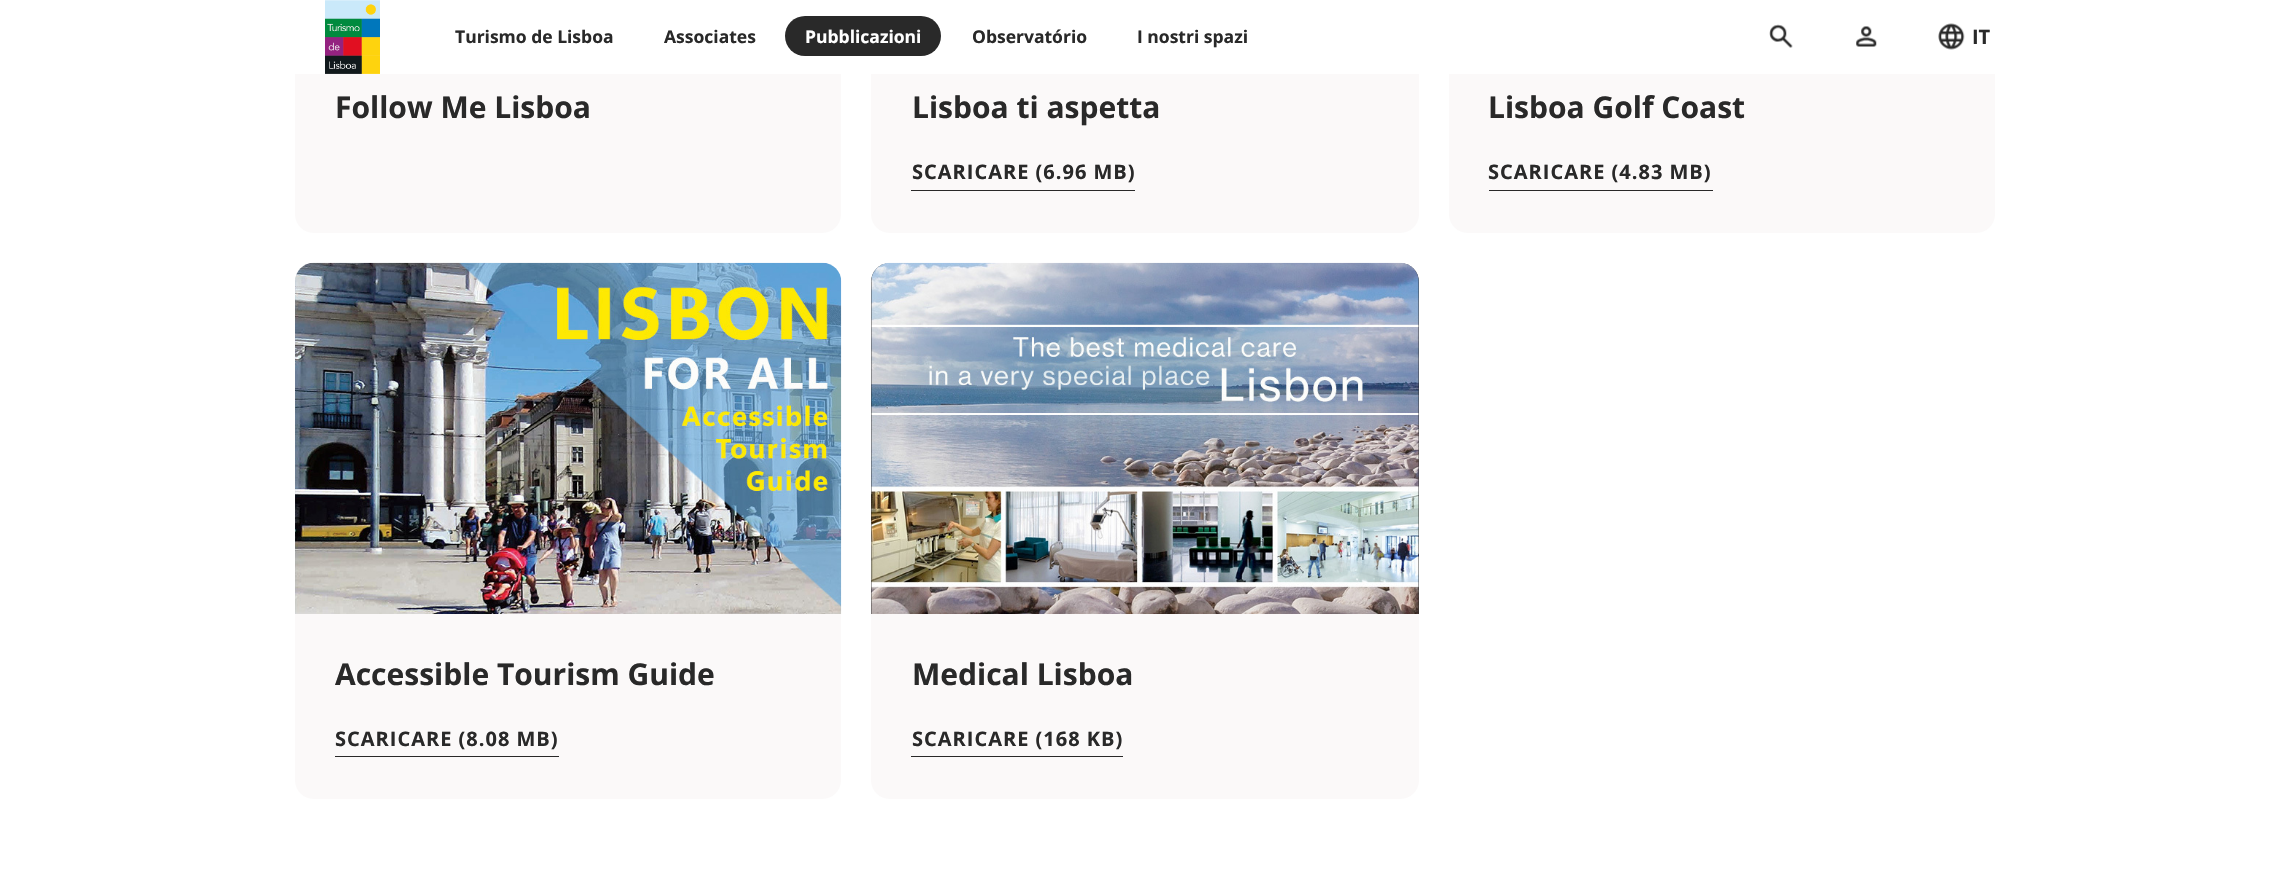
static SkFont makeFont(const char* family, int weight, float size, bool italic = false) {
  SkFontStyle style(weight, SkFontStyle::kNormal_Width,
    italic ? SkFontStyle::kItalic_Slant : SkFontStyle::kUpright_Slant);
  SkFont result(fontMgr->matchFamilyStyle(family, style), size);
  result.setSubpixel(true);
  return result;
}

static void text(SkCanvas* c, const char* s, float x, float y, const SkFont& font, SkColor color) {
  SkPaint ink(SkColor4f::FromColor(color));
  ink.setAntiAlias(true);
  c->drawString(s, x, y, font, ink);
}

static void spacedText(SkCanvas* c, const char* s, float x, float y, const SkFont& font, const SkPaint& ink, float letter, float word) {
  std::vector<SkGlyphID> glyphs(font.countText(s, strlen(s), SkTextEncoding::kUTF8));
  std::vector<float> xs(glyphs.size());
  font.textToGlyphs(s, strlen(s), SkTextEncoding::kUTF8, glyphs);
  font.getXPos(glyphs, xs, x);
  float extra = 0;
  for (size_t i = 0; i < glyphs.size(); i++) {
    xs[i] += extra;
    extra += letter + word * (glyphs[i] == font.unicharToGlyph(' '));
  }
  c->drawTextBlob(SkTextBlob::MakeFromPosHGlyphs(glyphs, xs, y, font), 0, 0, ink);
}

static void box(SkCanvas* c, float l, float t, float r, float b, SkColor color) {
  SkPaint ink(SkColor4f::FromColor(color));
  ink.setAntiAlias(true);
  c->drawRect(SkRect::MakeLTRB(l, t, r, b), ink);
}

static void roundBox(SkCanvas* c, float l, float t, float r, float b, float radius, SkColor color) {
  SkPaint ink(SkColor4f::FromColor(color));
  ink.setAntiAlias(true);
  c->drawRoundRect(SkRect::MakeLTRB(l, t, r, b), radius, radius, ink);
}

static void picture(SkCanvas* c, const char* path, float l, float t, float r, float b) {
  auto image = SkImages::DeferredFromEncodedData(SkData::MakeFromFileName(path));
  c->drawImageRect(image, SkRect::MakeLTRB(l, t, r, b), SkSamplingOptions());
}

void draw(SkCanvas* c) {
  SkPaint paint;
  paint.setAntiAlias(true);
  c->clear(0xffffffff);
  roundBox(c, 295, -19, 841, 233, 19, 0xfffbf9f9);
  roundBox(c, 871, -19, 1419, 233, 19, 0xfffbf9f9);
  roundBox(c, 1449, -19, 1995, 233, 19, 0xfffbf9f9);
  box(c, 295, 0, 1995, 74, 0xffffffff);
  picture(c, "img_01.png", 325, 0, 380, 74);
  SkFont face1 = makeFont("Open Sans", 700, 17.5f);
  text(c, "Turismo de Lisboa", 455, 43, face1, 0xff292929);
  text(c, "Associates", 664, 43, face1, 0xff292929);
  roundBox(c, 785, 16, 941, 56, 20, 0xff292929);
  text(c, "Pubblicazioni", 805, 43, face1, 0xffffffff);
  text(c, "Observatório", 972, 43, face1, 0xff292929);
  text(c, "I nostri spazi", 1137, 43, face1, 0xff292929);
  picture(c, "img_02.png", 1769, 24, 1793, 48);
  picture(c, "img_03.png", 1856, 26, 1877, 47);
  picture(c, "img_04.png", 1938, 23, 1965, 50);
  SkFont face2 = makeFont("Open Sans", 700, 20);
  text(c, "IT", 1972, 44, face2, 0xff292929);
  SkFont face3 = makeFont("Open Sans", 700, 30);
  text(c, "Follow Me Lisboa", 335, 118, face3, 0xff292929);
  text(c, "Lisboa ti aspetta", 912, 118, face3, 0xff292929);
  paint.setColor(0xff292929);
  spacedText(c, "SCARICARE (6.96 MB)", 912, 179, face2, paint, 1, 0);
  box(c, 911, 190, 1135, 191, 0xff292929);
  text(c, "Lisboa Golf Coast", 1488, 118, face3, 0xff292929);
  spacedText(c, "SCARICARE (4.83 MB)", 1488, 179, face2, paint, 1, 0);
  box(c, 1489, 190, 1713, 191, 0xff292929);
  roundBox(c, 295, 263, 841, 799, 19, 0xfffbf9f9);
  picture(c, "img_05.png", 295, 262, 842, 614);
  text(c, "Accessible Tourism Guide", 335, 685, face3, 0xff292929);
  spacedText(c, "SCARICARE (8.08 MB)", 335, 746, face2, paint, 1, 0);
  box(c, 335, 756, 559, 757, 0xff292929);
  roundBox(c, 871, 263, 1419, 799, 19, 0xfffbf9f9);
  c->drawPath(SkPathBuilder().moveTo(890, 263).lineTo(1400, 263).cubicTo(1410.5f, 263, 1419, 271.5f, 1419, 282).lineTo(1419, 614).lineTo(871, 614).lineTo(871, 282).cubicTo(871, 271.5f, 879.5f, 263, 890, 263).close().detach(), paint);
  picture(c, "img_06.png", 871, 262, 1419, 614);
  text(c, "Medical Lisboa", 912, 685, face3, 0xff292929);
  spacedText(c, "SCARICARE (168 KB)", 912, 746, face2, paint, 1, 0);
  box(c, 911, 756, 1123, 757, 0xff292929);
}
